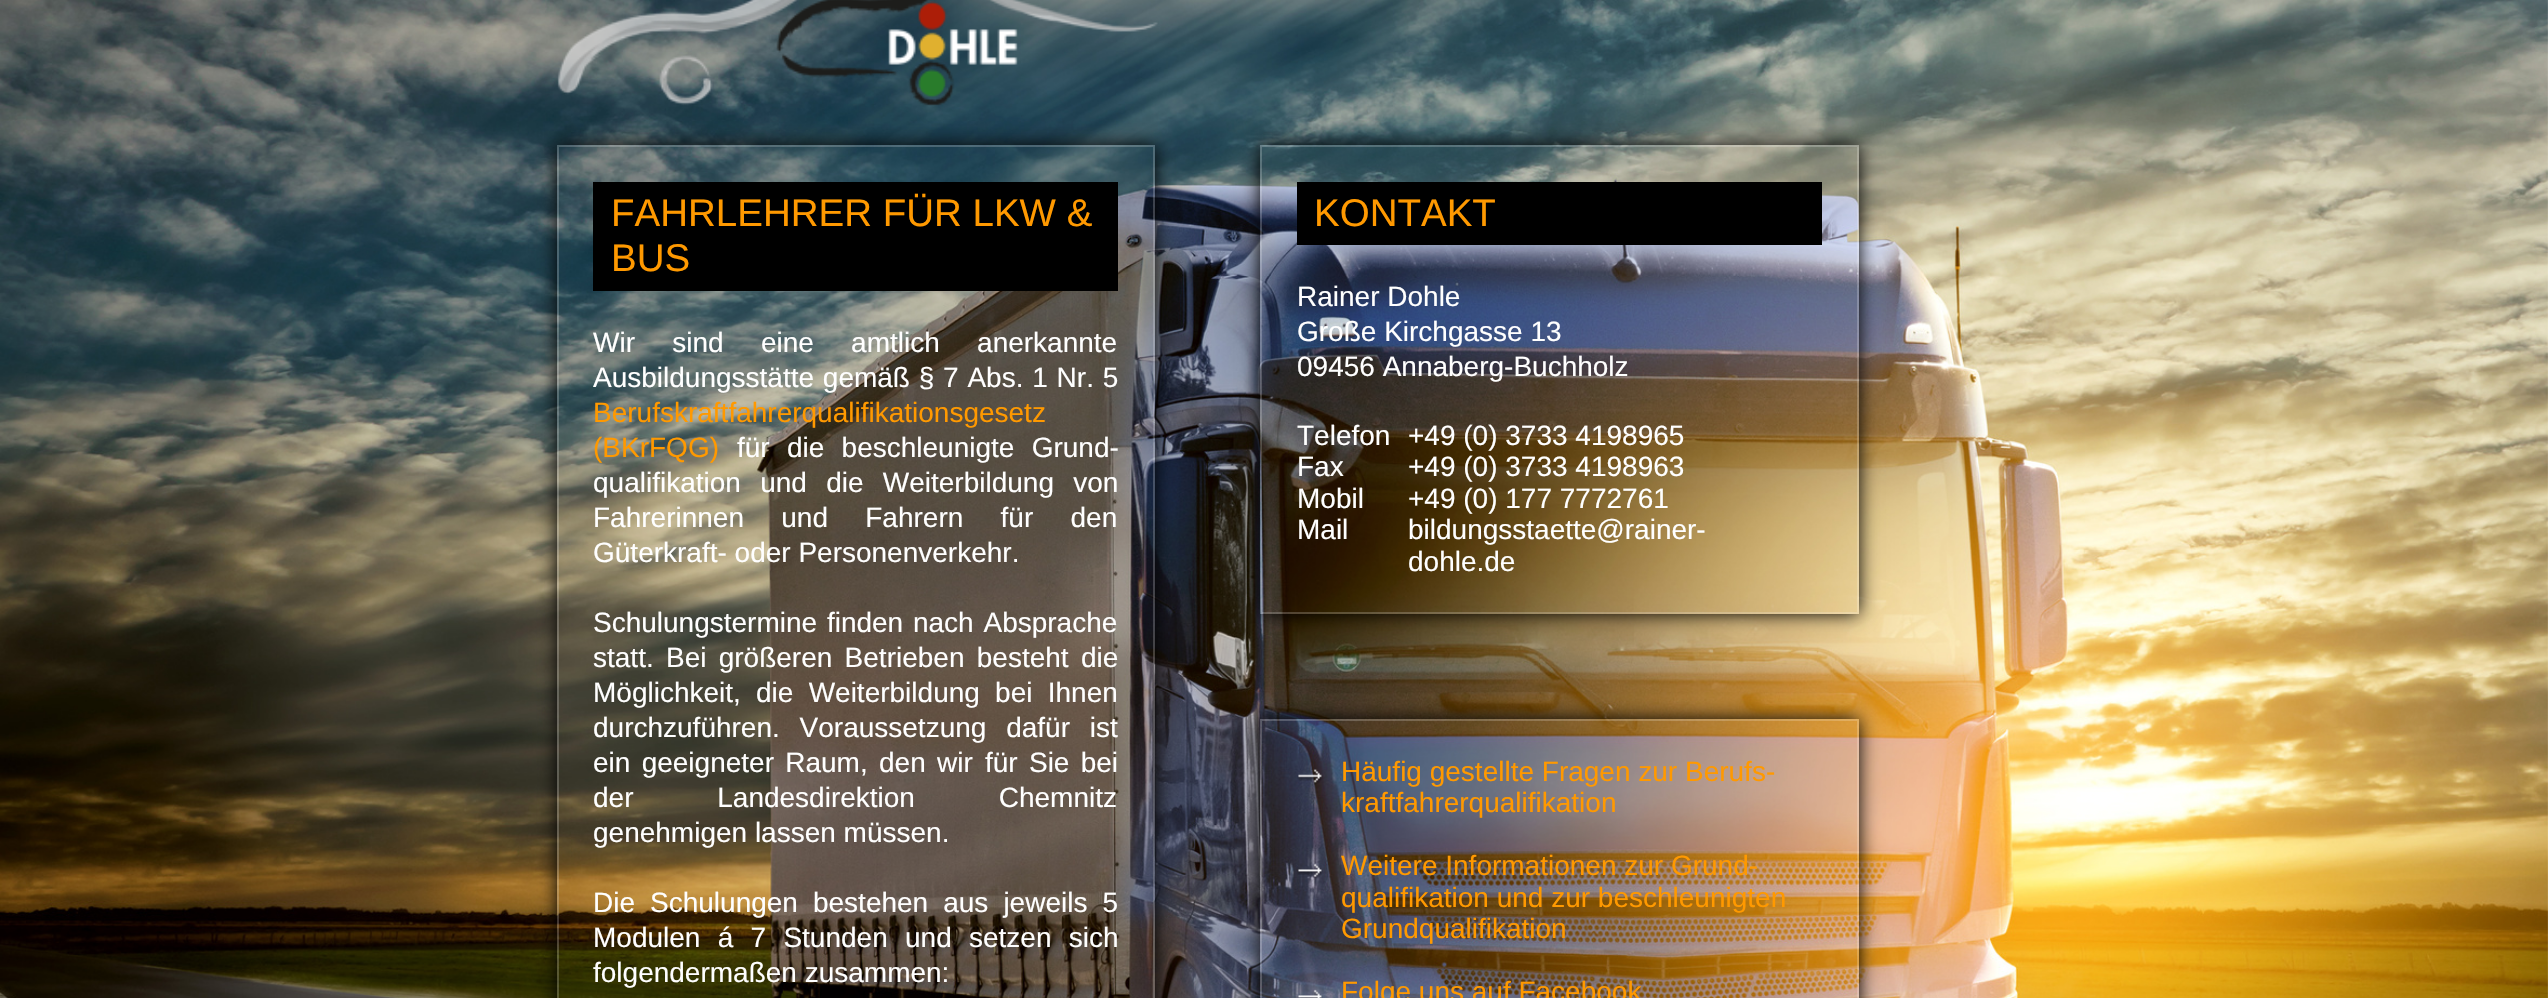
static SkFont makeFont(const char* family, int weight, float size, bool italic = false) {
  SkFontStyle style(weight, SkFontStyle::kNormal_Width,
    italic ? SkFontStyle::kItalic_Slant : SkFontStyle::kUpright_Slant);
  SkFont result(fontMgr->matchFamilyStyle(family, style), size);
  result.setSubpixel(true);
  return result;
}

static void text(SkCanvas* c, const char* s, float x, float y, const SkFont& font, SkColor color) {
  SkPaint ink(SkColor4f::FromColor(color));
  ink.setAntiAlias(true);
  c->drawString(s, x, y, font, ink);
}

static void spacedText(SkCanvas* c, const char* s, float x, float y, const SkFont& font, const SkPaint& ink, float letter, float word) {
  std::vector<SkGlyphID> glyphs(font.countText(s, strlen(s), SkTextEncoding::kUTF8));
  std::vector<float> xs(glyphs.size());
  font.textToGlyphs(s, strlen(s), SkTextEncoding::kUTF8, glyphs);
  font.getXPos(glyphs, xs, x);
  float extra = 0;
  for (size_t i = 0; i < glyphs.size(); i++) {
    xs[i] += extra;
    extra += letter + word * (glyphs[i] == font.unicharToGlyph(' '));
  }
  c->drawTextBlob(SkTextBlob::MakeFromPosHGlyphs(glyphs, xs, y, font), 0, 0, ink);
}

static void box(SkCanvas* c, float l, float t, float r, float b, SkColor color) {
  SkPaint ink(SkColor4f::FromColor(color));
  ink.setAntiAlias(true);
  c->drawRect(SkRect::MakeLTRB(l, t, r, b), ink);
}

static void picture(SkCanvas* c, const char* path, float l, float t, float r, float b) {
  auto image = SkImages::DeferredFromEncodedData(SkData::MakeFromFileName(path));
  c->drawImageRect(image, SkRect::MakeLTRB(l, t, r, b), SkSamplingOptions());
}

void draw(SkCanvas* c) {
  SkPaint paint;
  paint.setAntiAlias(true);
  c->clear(0xffffffff);
  picture(c, "img_01.png", 0, 0, 2548, 998);
  picture(c, "img_02.png", 557, 0, 1158, 106);
  c->save();
  c->clipPath(SkPathBuilder(SkPathFillType::kEvenOdd).moveTo(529, 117).lineTo(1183, 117).lineTo(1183, 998).lineTo(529, 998).close().moveTo(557, 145).lineTo(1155, 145).lineTo(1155, 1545).lineTo(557, 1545).close().detach(), true);
  paint.setColor(0xff000000);
  paint.setMaskFilter(SkMaskFilter::MakeBlur(kNormal_SkBlurStyle, 9));
  c->drawRect(SkRect::MakeLTRB(557, 145, 1155, 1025), paint);
  paint.setMaskFilter(nullptr);
  c->restore();
  paint.setStyle(SkPaint::kStroke_Style);
  paint.setStrokeWidth(2);
  paint.setColor(0x33ffffff);
  c->drawRect(SkRect::MakeLTRB(558, 146, 1154, 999), paint);
  box(c, 593, 182, 1118, 291, 0xff000000);
  SkFont face1 = makeFont("Liberation Sans", 400, 38.5f);
  text(c, "FAHRLEHRER FÜR LKW &", 611, 226, face1, 0xffff9900);
  text(c, "BUS", 611, 271, face1, 0xffff9900);
  SkFont face2 = makeFont("Liberation Sans", 400, 28);
  paint.setStyle(SkPaint::kFill_Style);
  paint.setColor(0xffffffff);
  spacedText(c, "Wir sind eine amtlich anerkannte", 593, 352, face2, paint, 0, 29.5f);
  spacedText(c, "Ausbildungsstätte gemäß § 7 Abs. 1 Nr. 5", 593, 387, face2, paint, 0, 1);
  text(c, "Berufskraftfahrerqualifikationsgesetz", 593, 422, face2, 0xffff9900);
  text(c, "(BKrFQG)", 593, 457, face2, 0xffff9900);
  spacedText(c, "für die beschleunigte Grund-", 737, 457, face2, paint, 0, 9.5f);
  spacedText(c, "qualifikation und die Weiterbildung von", 593, 492, face2, paint, 0, 11.5f);
  spacedText(c, "Fahrerinnen und Fahrern für den", 593, 527, face2, paint, 0, 29.5f);
  text(c, "Güterkraft- oder Personenverkehr.", 593, 562, face2, 0xffffffff);
  spacedText(c, "Schulungstermine finden nach Absprache", 593, 632, face2, paint, 0, 2);
  spacedText(c, "statt. Bei größeren Betrieben besteht die", 593, 667, face2, paint, 0, 4.5f);
  text(c, "Möglichkeit,", 593, 702, face2, 0xffffffff);
  spacedText(c, "die Weiterbildung bei Ihnen", 756, 702, face2, paint, 0, 7.5f);
  spacedText(c, "durchzuführen. Voraussetzung dafür ist", 593, 737, face2, paint, 0, 12);
  spacedText(c, "ein geeigneter Raum, den wir", 593, 772, face2, paint, 0, 3.5f);
  spacedText(c, "für Sie bei", 985, 772, face2, paint, 0, 3.5f);
  spacedText(c, "der Landesdirektion Chemnitz", 593, 807, face2, paint, 0, 76);
  text(c, "genehmigen lassen müssen.", 593, 842, face2, 0xffffffff);
  spacedText(c, "Die Schulungen bestehen aus jeweils 5", 593, 912, face2, paint, 0, 7.25f);
  spacedText(c, "Modulen á 7 Stunden", 593, 947, face2, paint, 0, 9.5f);
  spacedText(c, "und setzen sich", 905, 947, face2, paint, 0, 9.5f);
  text(c, "folgendermaßen zusammen:", 593, 982, face2, 0xffffffff);
  c->save();
  c->clipPath(SkPathBuilder(SkPathFillType::kEvenOdd).moveTo(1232, 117).lineTo(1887, 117).lineTo(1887, 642).lineTo(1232, 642).close().moveTo(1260, 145).lineTo(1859, 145).lineTo(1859, 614).lineTo(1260, 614).close().detach(), true);
  paint.setColor(0xff000000);
  paint.setMaskFilter(SkMaskFilter::MakeBlur(kNormal_SkBlurStyle, 9));
  c->drawRect(SkRect::MakeLTRB(1260, 145, 1859, 614), paint);
  paint.setMaskFilter(nullptr);
  c->restore();
  paint.setStyle(SkPaint::kStroke_Style);
  paint.setColor(0x33ffffff);
  c->drawRect(SkRect::MakeLTRB(1261, 146, 1858, 613), paint);
  box(c, 1297, 182, 1822, 245, 0xff000000);
  text(c, "KONTAKT", 1314, 226, face1, 0xffff9900);
  text(c, "Rainer Dohle", 1297, 306, face2, 0xffffffff);
  text(c, "Große Kirchgasse 13", 1297, 341, face2, 0xffffffff);
  text(c, "09456 Annaberg-Buchholz", 1297, 376, face2, 0xffffffff);
  text(c, "Telefon", 1297, 445, face2, 0xffffffff);
  text(c, "+49 (0) 3733 4198965", 1408, 445, face2, 0xffffffff);
  text(c, "Fax", 1297, 476, face2, 0xffffffff);
  text(c, "+49 (0) 3733 4198963", 1408, 476, face2, 0xffffffff);
  text(c, "Mobil", 1297, 508, face2, 0xffffffff);
  text(c, "+49 (0) 177 7772761", 1408, 508, face2, 0xffffffff);
  text(c, "Mail", 1297, 539, face2, 0xffffffff);
  text(c, "bildungsstaette@rainer-", 1408, 539, face2, 0xffffffff);
  text(c, "dohle.de", 1408, 571, face2, 0xffffffff);
  c->save();
  c->clipPath(SkPathBuilder(SkPathFillType::kEvenOdd).moveTo(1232, 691).lineTo(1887, 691).lineTo(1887, 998).lineTo(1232, 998).close().moveTo(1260, 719).lineTo(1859, 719).lineTo(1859, 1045).lineTo(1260, 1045).close().detach(), true);
  paint.setStyle(SkPaint::kFill_Style);
  paint.setColor(0xff000000);
  paint.setMaskFilter(SkMaskFilter::MakeBlur(kNormal_SkBlurStyle, 9));
  c->drawRect(SkRect::MakeLTRB(1260, 719, 1859, 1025), paint);
  paint.setMaskFilter(nullptr);
  c->restore();
  paint.setStyle(SkPaint::kStroke_Style);
  paint.setColor(0x33ffffff);
  c->drawRect(SkRect::MakeLTRB(1261, 720, 1858, 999), paint);
  picture(c, "img_03.png", 1297, 769, 1323, 785);
  text(c, "Häufig gestellte Fragen zur Berufs-", 1341, 781, face2, 0xffff9900);
  text(c, "kraftfahrerqualifikation", 1341, 812, face2, 0xffff9900);
  picture(c, "img_04.png", 1297, 863, 1323, 880);
  text(c, "Weitere Informationen zur Grund-", 1341, 875, face2, 0xffff9900);
  text(c, "qualifikation und zur beschleunigten", 1341, 907, face2, 0xffff9900);
  text(c, "Grundqualifikation", 1341, 938, face2, 0xffff9900);
  picture(c, "img_05.png", 1297, 989, 1323, 998);
  text(c, "Folge uns auf Facebook", 1341, 1001, face2, 0xffff9900);
}
